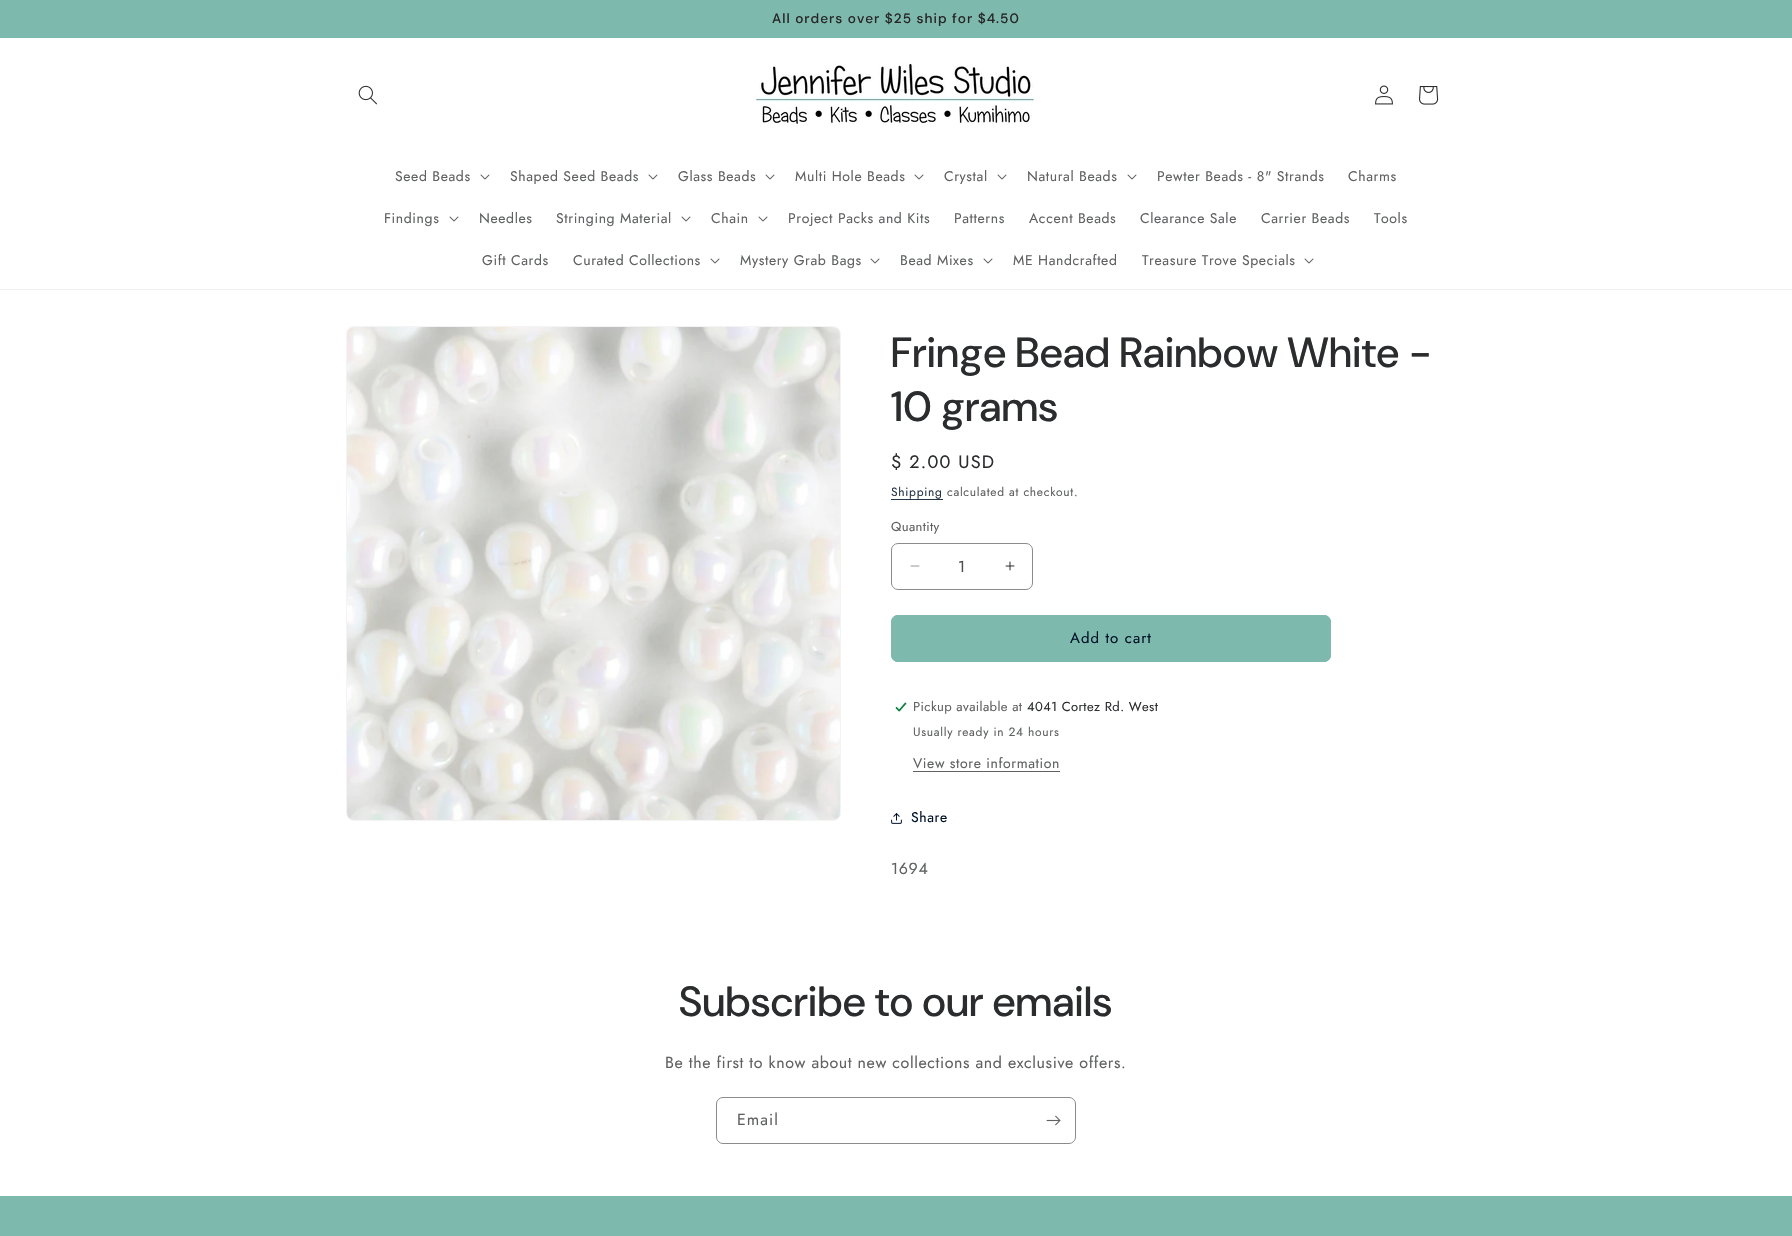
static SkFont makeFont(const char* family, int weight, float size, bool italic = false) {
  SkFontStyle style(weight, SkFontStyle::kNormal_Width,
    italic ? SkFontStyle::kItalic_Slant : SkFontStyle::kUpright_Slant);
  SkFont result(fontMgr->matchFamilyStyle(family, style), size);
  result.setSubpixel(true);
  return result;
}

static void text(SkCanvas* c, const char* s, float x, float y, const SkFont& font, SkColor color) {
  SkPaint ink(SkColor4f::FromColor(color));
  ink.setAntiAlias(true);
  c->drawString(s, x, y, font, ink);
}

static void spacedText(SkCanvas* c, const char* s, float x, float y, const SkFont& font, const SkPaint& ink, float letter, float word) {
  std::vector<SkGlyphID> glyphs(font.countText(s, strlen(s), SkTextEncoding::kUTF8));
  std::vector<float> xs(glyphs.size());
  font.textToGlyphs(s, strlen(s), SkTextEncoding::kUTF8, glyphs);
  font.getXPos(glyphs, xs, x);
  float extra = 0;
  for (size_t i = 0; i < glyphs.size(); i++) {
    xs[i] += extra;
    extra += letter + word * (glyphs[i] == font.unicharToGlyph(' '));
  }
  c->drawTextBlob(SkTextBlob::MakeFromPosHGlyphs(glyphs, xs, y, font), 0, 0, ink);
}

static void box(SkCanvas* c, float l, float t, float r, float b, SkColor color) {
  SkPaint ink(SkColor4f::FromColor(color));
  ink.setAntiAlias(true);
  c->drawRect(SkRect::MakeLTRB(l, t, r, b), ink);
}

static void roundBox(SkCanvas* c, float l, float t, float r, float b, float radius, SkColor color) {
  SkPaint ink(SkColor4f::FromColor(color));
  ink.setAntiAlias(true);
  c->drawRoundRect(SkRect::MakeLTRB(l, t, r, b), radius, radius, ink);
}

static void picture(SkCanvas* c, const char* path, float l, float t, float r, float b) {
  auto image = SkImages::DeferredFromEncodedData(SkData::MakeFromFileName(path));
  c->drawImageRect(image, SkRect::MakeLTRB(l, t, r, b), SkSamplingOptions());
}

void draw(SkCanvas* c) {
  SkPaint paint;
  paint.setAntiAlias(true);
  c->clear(0xffffffff);
  box(c, 0, 0, 1792, 38, 0xff7eb9ad);
  SkFont face1 = makeFont("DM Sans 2", 500, 13.6f);
  paint.setColor(0xff262626);
  spacedText(c, "All orders over $25 ship for $4.50", 772, 23, face1, paint, 1, 0);
  box(c, 0, 289, 1792, 290, 0xffeeeeee);
  picture(c, "img_01.png", 358, 85, 377, 105);
  picture(c, "img_02.png", 755, 62, 1035, 126);
  picture(c, "img_03.png", 1375, 85, 1393, 105);
  picture(c, "img_04.png", 1419, 86, 1439, 105);
  SkFont face2 = makeFont("Jost", 400, 14);
  paint.setColor(0xff606162);
  spacedText(c, "Seed Beads", 395, 181, face2, paint, 0.6f, 0);
  picture(c, "img_05.png", 480, 174, 490, 180);
  spacedText(c, "Shaped Seed Beads", 510, 181, face2, paint, 0.6f, 0);
  picture(c, "img_05.png", 648, 174, 658, 180);
  spacedText(c, "Glass Beads", 678, 181, face2, paint, 0.6f, 0);
  picture(c, "img_05.png", 765, 174, 775, 180);
  spacedText(c, "Multi Hole Beads", 795, 181, face2, paint, 0.6f, 0);
  picture(c, "img_05.png", 914, 174, 924, 180);
  spacedText(c, "Crystal", 944, 181, face2, paint, 0.6f, 0);
  picture(c, "img_05.png", 997, 174, 1007, 180);
  spacedText(c, "Natural Beads", 1027, 181, face2, paint, 0.6f, 0);
  picture(c, "img_05.png", 1127, 174, 1137, 180);
  spacedText(c, "Pewter Beads - 8\" Strands", 1157, 181, face2, paint, 0.6f, 0);
  spacedText(c, "Charms", 1348, 181, face2, paint, 0.6f, 0);
  spacedText(c, "Findings", 384, 223, face2, paint, 0.6f, 0);
  picture(c, "img_05.png", 449, 216, 459, 222);
  spacedText(c, "Needles", 479, 223, face2, paint, 0.6f, 0);
  spacedText(c, "Stringing Material", 556, 223, face2, paint, 0.6f, 0);
  picture(c, "img_05.png", 681, 216, 691, 222);
  spacedText(c, "Chain", 711, 223, face2, paint, 0.6f, 0);
  picture(c, "img_05.png", 758, 216, 768, 222);
  spacedText(c, "Project Packs and Kits", 788, 223, face2, paint, 0.6f, 0);
  spacedText(c, "Patterns", 954, 223, face2, paint, 0.6f, 0);
  spacedText(c, "Accent Beads", 1029, 223, face2, paint, 0.6f, 0);
  spacedText(c, "Clearance Sale", 1140, 223, face2, paint, 0.6f, 0);
  spacedText(c, "Carrier Beads", 1261, 223, face2, paint, 0.6f, 0);
  spacedText(c, "Tools", 1374, 223, face2, paint, 0.6f, 0);
  spacedText(c, "Gift Cards", 482, 265, face2, paint, 0.6f, 0);
  spacedText(c, "Curated Collections", 573, 265, face2, paint, 0.6f, 0);
  picture(c, "img_05.png", 710, 258, 720, 264);
  spacedText(c, "Mystery Grab Bags", 740, 265, face2, paint, 0.6f, 0);
  picture(c, "img_05.png", 870, 258, 880, 264);
  spacedText(c, "Bead Mixes", 900, 265, face2, paint, 0.6f, 0);
  picture(c, "img_05.png", 983, 258, 993, 264);
  spacedText(c, "ME Handcrafted", 1013, 265, face2, paint, 0.6f, 0);
  spacedText(c, "Treasure Trove Specials", 1142, 265, face2, paint, 0.6f, 0);
  picture(c, "img_05.png", 1304, 258, 1314, 264);
  paint.setStyle(SkPaint::kStroke_Style);
  paint.setStrokeWidth(1);
  paint.setColor(0xfff4f4f5);
  c->drawRoundRect(SkRect::MakeLTRB(346.5f, 326.5f, 840.5f, 820.5f), 7.5f, 7.5f, paint);
  picture(c, "img_06.png", 347, 327, 840, 820);
  SkFont face3 = makeFont("DM Sans", 500, 42);
  paint.setStyle(SkPaint::kFill_Style);
  paint.setColor(0xff2b2c2d);
  spacedText(c, "Fringe Bead Rainbow White -", 891, 367, face3, paint, 0.6f, 0);
  spacedText(c, "10 grams", 891, 421, face3, paint, 0.6f, 0);
  SkFont face4 = makeFont("Jost", 400, 18);
  spacedText(c, "$ 2.00 USD", 891, 468, face4, paint, 1.25f, 0);
  SkFont face5 = makeFont("Jost", 400, 12);
  paint.setColor(0xff263548);
  spacedText(c, "Shipping", 891, 496, face5, paint, 0.7f, 0);
  box(c, 891, 499, 943, 500, 0xff263548);
  paint.setColor(0xff606162);
  spacedText(c, "calculated at checkout.", 947, 496, face5, paint, 0.7f, 0);
  SkFont face6 = makeFont("Jost", 400, 13);
  spacedText(c, "Quantity", 891, 531, face6, paint, 0.4f, 0);
  picture(c, "img_07.png", 910, 565, 920, 567);
  picture(c, "img_08.png", 1005, 561, 1015, 571);
  paint.setStyle(SkPaint::kStroke_Style);
  paint.setColor(0xff8a8b8c);
  c->drawRoundRect(SkRect::MakeLTRB(891.5f, 543.5f, 1032.5f, 589.5f), 6.5f, 6.5f, paint);
  SkFont face7 = makeFont("Jost", 400, 16);
  text(c, "1", 958, 572, face7, 0xff4b4c4d);
  roundBox(c, 891, 615, 1331, 662, 7, 0xff7eb9ad);
  paint.setColor(0xff7eb9ad);
  c->drawRoundRect(SkRect::MakeLTRB(891.5f, 615.5f, 1330.5f, 661.5f), 6.5f, 6.5f, paint);
  SkFont face8 = makeFont("Jost", 400, 15);
  paint.setStyle(SkPaint::kFill_Style);
  paint.setColor(0xff001128);
  spacedText(c, "Add to cart", 1070, 643, face8, paint, 1, 0);
  picture(c, "img_09.png", 895, 702, 907, 712);
  paint.setColor(0xff606162);
  spacedText(c, "Pickup available at", 913, 711, face6, paint, 0.4f, 0);
  paint.setColor(0xff2b2c2d);
  spacedText(c, "4041 Cortez Rd. West", 1027, 711, face6, paint, 0.4f, 0);
  paint.setColor(0xff606162);
  spacedText(c, "Usually ready in 24 hours", 913, 736, face5, paint, 0.7f, 0);
  spacedText(c, "View store information", 913, 768, face2, paint, 0.6f, 0);
  box(c, 913, 771, 1060, 772, 0xff606162);
  picture(c, "img_10.png", 891, 813, 902, 824);
  paint.setColor(0xff001128);
  spacedText(c, "Share", 911, 822, face2, paint, 0.6f, 0);
  paint.setColor(0xff606162);
  spacedText(c, "1694", 891, 874, face7, paint, 0.6f, 0);
  paint.setColor(0xff2b2c2d);
  spacedText(c, "Subscribe to our emails", 679, 1016, face3, paint, 0.6f, 0);
  paint.setColor(0xff606162);
  spacedText(c, "Be the first to know about new collections and exclusive offers.", 665, 1068, face7, paint, 0.6f, 0);
  paint.setStyle(SkPaint::kStroke_Style);
  paint.setColor(0xff8a8b8c);
  c->drawRoundRect(SkRect::MakeLTRB(716.5f, 1097.5f, 1075.5f, 1143.5f), 6.5f, 6.5f, paint);
  paint.setStyle(SkPaint::kFill_Style);
  paint.setColor(0xff606162);
  spacedText(c, "Email", 737, 1125, face7, paint, 1, 0);
  picture(c, "img_11.png", 1046, 1115, 1061, 1126);
  box(c, 0, 1196, 1792, 1236, 0xff7eb9ad);
}
